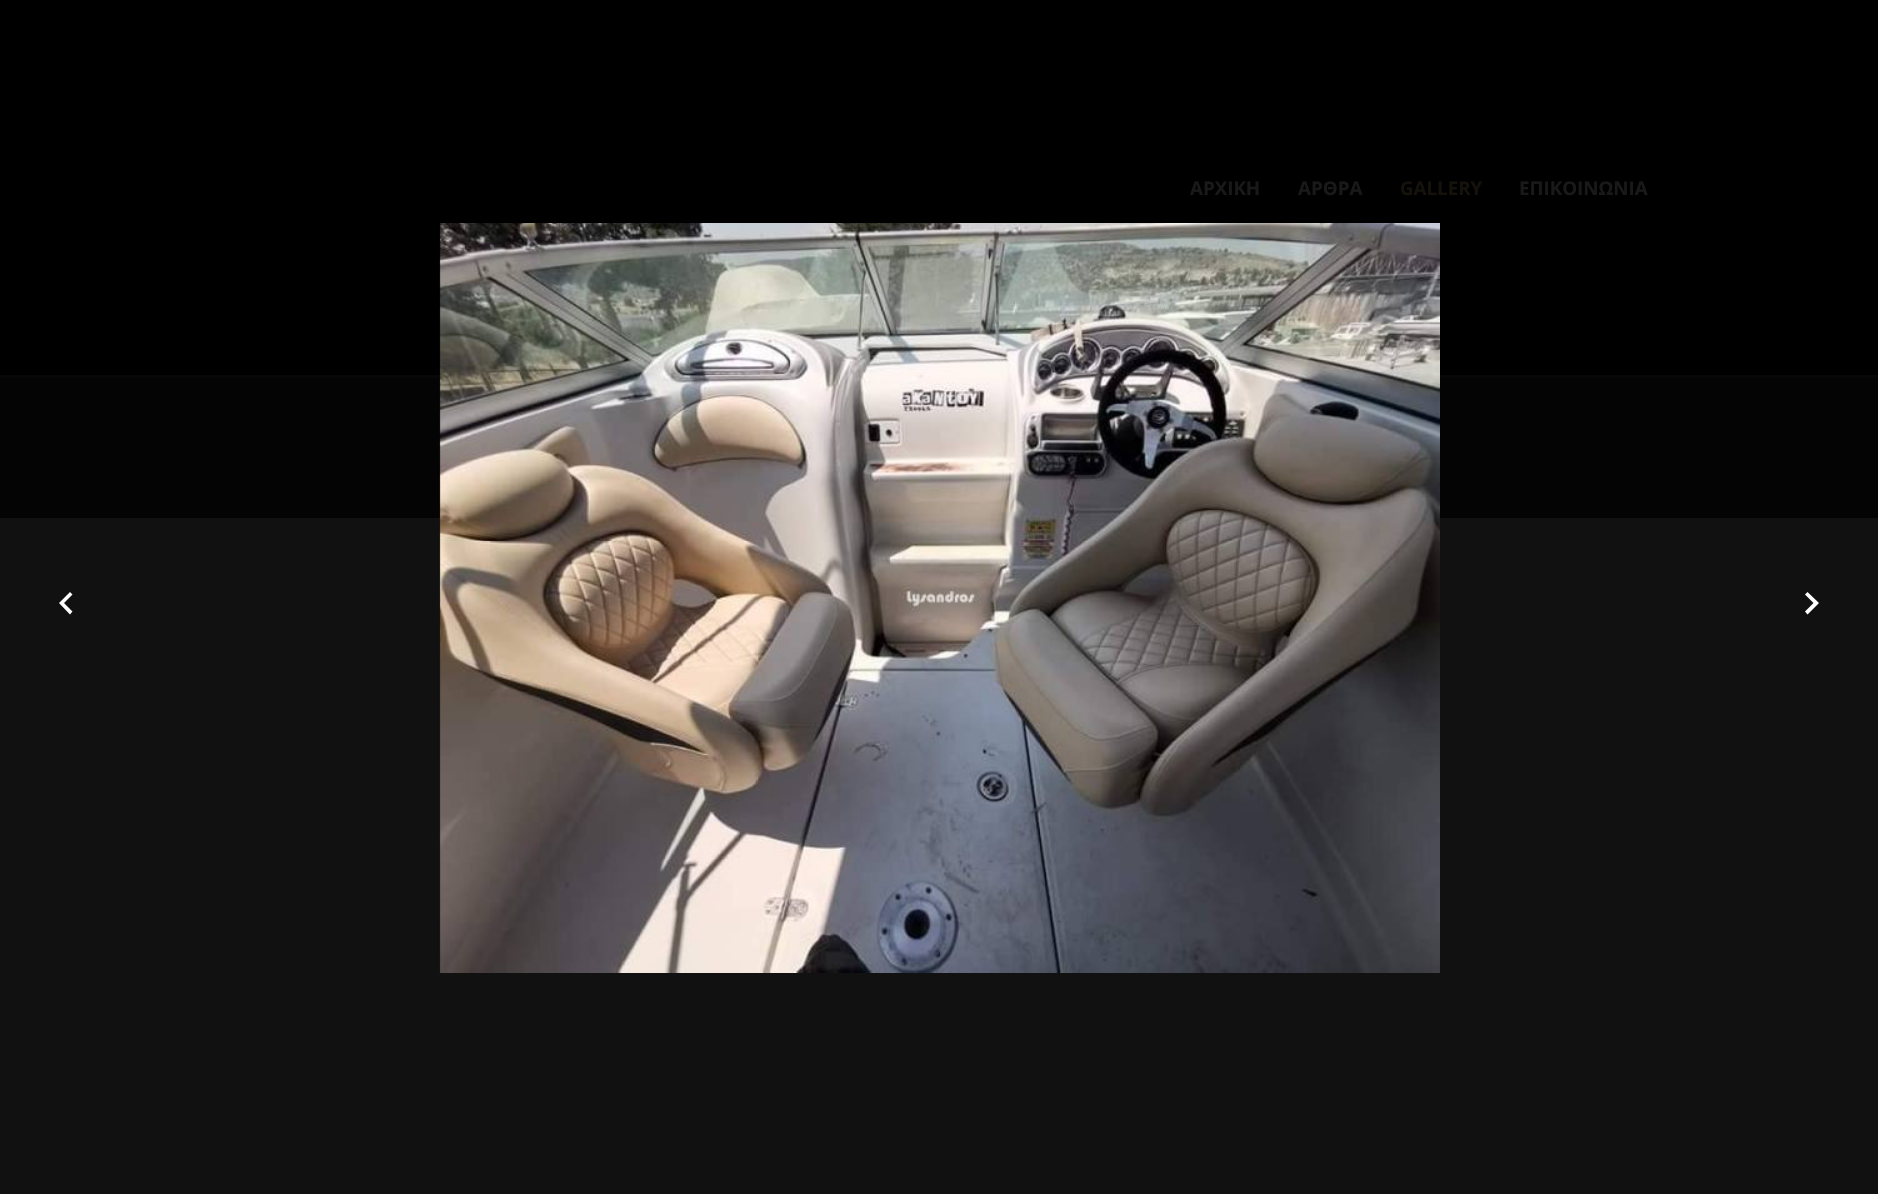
static SkFont makeFont(const char* family, int weight, float size, bool italic = false) {
  SkFontStyle style(weight, SkFontStyle::kNormal_Width,
    italic ? SkFontStyle::kItalic_Slant : SkFontStyle::kUpright_Slant);
  SkFont result(fontMgr->matchFamilyStyle(family, style), size);
  result.setSubpixel(true);
  return result;
}

static void text(SkCanvas* c, const char* s, float x, float y, const SkFont& font, SkColor color) {
  SkPaint ink(SkColor4f::FromColor(color));
  ink.setAntiAlias(true);
  c->drawString(s, x, y, font, ink);
}

static void box(SkCanvas* c, float l, float t, float r, float b, SkColor color) {
  SkPaint ink(SkColor4f::FromColor(color));
  ink.setAntiAlias(true);
  c->drawRect(SkRect::MakeLTRB(l, t, r, b), ink);
}

static void picture(SkCanvas* c, const char* path, float l, float t, float r, float b) {
  auto image = SkImages::DeferredFromEncodedData(SkData::MakeFromFileName(path));
  c->drawImageRect(image, SkRect::MakeLTRB(l, t, r, b), SkSamplingOptions());
}

void draw(SkCanvas* c) {
  SkPaint paint;
  paint.setAntiAlias(true);
  c->clear(0xff040404);
  box(c, 0, 0, 1878, 375, 0xff000000);
  box(c, 0, 375, 1878, 378, 0xff070707);
  SkFont face1 = makeFont("Open Sans", 700, 18.75f);
  text(c, "ΑΡΧΙΚΗ", 1190, 195, face1, 0xff191919);
  text(c, "ΑΡΘΡΑ", 1298, 195, face1, 0xff191919);
  text(c, "GALLERY", 1400, 195, face1, 0xff15120c);
  text(c, "ΕΠΙΚΟΙΝΩΝΙΑ", 1519, 195, face1, 0xff191919);
  box(c, 0, 518, 1878, 1194, 0xff111111);
  picture(c, "img_01.png", 439, 223, 1440, 973);
  paint.setColor(0xffffffff);
  c->drawPath(SkPathBuilder().moveTo(72.5f, 594.5f).lineTo(64, 603).lineTo(72.5f, 611.5f).lineTo(70, 614.5f).lineTo(59, 603).lineTo(70, 592).close().detach(), paint);
  c->drawPath(SkPathBuilder().moveTo(1807.5f, 592).lineTo(1819, 603).lineTo(1807.5f, 614.5f).lineTo(1805, 611.5f).lineTo(1813.5f, 603).lineTo(1805, 594.5f).close().detach(), paint);
}
